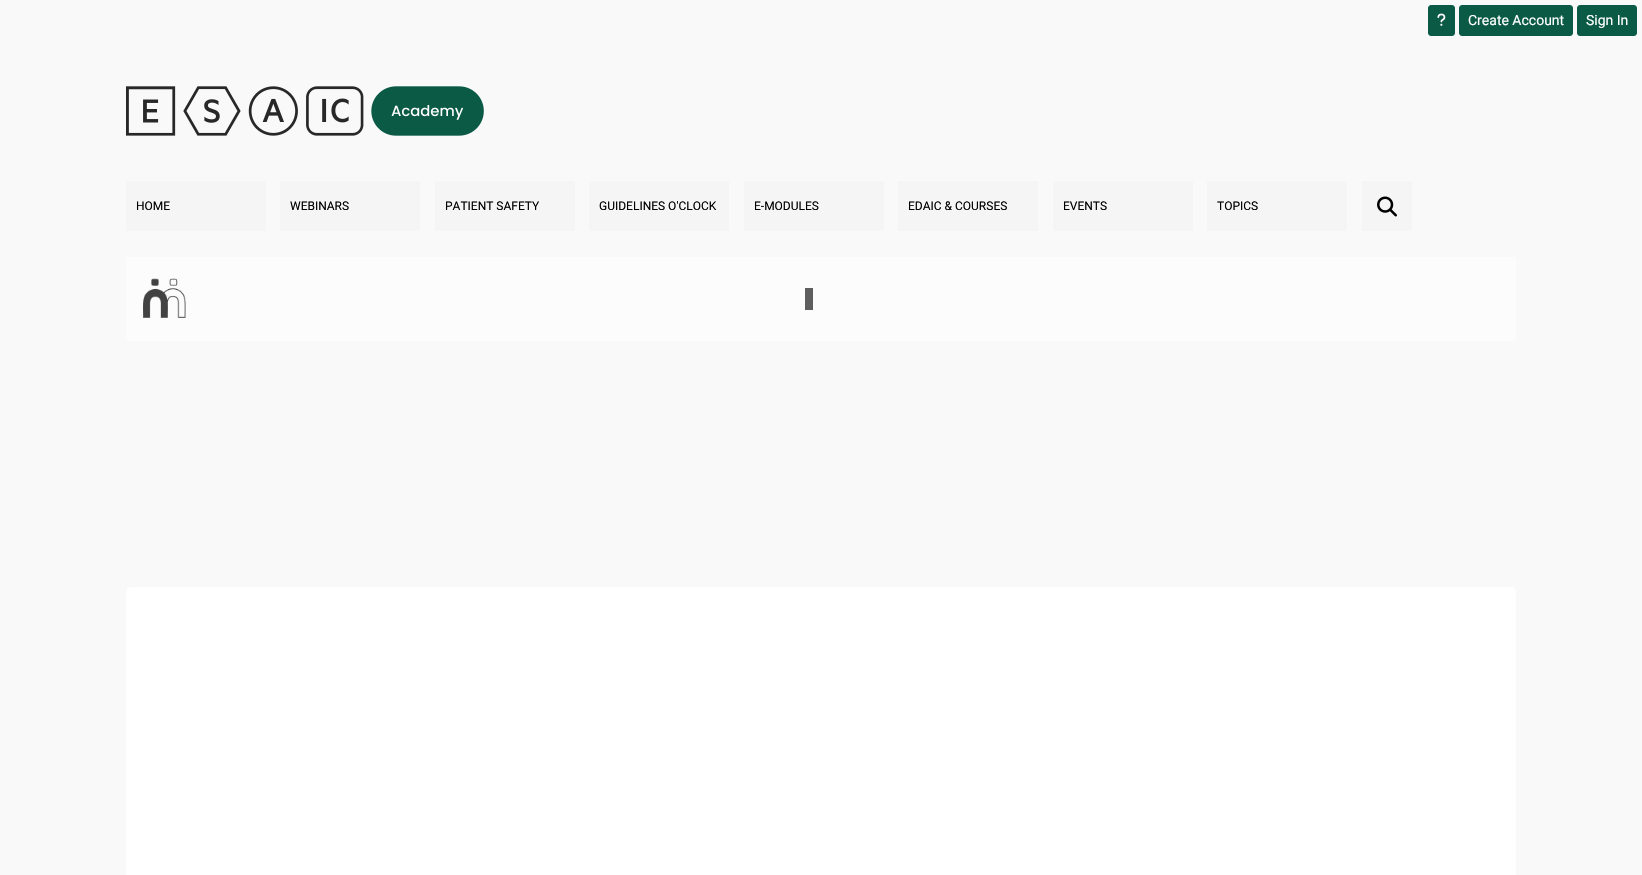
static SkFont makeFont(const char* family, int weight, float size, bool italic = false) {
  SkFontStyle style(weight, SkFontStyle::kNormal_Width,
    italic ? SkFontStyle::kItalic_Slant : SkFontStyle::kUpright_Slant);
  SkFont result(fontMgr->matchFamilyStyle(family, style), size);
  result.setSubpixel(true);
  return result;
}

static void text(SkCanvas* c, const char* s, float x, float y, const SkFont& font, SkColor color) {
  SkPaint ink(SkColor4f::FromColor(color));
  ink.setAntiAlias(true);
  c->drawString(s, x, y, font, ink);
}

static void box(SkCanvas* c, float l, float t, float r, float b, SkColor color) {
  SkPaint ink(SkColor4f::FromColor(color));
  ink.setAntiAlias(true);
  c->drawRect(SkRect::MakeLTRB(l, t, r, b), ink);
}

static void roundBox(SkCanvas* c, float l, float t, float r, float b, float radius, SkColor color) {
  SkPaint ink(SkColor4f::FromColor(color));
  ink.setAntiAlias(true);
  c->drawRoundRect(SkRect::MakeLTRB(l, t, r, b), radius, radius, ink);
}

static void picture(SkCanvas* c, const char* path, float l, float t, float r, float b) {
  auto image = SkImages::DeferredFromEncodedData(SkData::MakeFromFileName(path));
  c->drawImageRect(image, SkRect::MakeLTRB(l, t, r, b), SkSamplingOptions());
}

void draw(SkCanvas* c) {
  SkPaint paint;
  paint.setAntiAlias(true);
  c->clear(0xfffaf9f9);
  paint.setColor(0xff0a5a46);
  c->drawRoundRect(SkRect::MakeLTRB(1428.5f, 5.5f, 1454.5f, 35.5f), 2.5f, 2.5f, paint);
  paint.setStyle(SkPaint::kStroke_Style);
  paint.setStrokeWidth(1);
  c->drawRoundRect(SkRect::MakeLTRB(1428.5f, 5.5f, 1454.5f, 35.5f), 2.5f, 2.5f, paint);
  picture(c, "img_01.png", 1437, 13, 1446, 26);
  paint.setStyle(SkPaint::kFill_Style);
  c->drawRoundRect(SkRect::MakeLTRB(1459.5f, 5.5f, 1572.5f, 35.5f), 2.5f, 2.5f, paint);
  paint.setStyle(SkPaint::kStroke_Style);
  c->drawRoundRect(SkRect::MakeLTRB(1459.5f, 5.5f, 1572.5f, 35.5f), 2.5f, 2.5f, paint);
  SkFont face1 = makeFont("Roboto", 400, 14);
  text(c, "Create Account", 1468, 25, face1, 0xffffffff);
  paint.setStyle(SkPaint::kFill_Style);
  c->drawRoundRect(SkRect::MakeLTRB(1577.5f, 5.5f, 1636.5f, 35.5f), 2.5f, 2.5f, paint);
  paint.setStyle(SkPaint::kStroke_Style);
  c->drawRoundRect(SkRect::MakeLTRB(1577.5f, 5.5f, 1636.5f, 35.5f), 2.5f, 2.5f, paint);
  text(c, "Sign In", 1586, 25, face1, 0xffffffff);
  picture(c, "img_02.png", 126, 86, 484, 136);
  box(c, 126, 181, 266, 231, 0xfff5f5f5);
  SkFont face2 = makeFont("Roboto", 400, 12);
  text(c, "HOME", 136, 210, face2, 0xff000000);
  box(c, 280, 181, 420, 231, 0xfff5f5f5);
  text(c, "WEBINARS", 290, 210, face2, 0xff000000);
  box(c, 435, 181, 575, 231, 0xfff5f5f5);
  text(c, "PATIENT SAFETY", 445, 210, face2, 0xff000000);
  box(c, 589, 181, 729, 231, 0xfff5f5f5);
  text(c, "GUIDELINES O'CLOCK", 599, 210, face2, 0xff000000);
  box(c, 744, 181, 884, 231, 0xfff5f5f5);
  text(c, "E-MODULES", 754, 210, face2, 0xff000000);
  box(c, 898, 181, 1038, 231, 0xfff5f5f5);
  text(c, "EDAIC & COURSES", 908, 210, face2, 0xff000000);
  box(c, 1053, 181, 1193, 231, 0xfff5f5f5);
  text(c, "EVENTS", 1063, 210, face2, 0xff000000);
  box(c, 1207, 181, 1347, 231, 0xfff5f5f5);
  text(c, "TOPICS", 1217, 210, face2, 0xff000000);
  box(c, 1362, 181, 1412, 231, 0xfff5f5f5);
  picture(c, "img_03.png", 1377, 196, 1397, 217);
  box(c, 126, 257, 1516, 341, 0xfffdfcfc);
  picture(c, "img_04.png", 143, 278, 186, 318);
  box(c, 805, 288, 813, 310, 0xff5e5e5e);
  roundBox(c, 126, 587, 1516, 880, 5, 0xffffffff);
}
